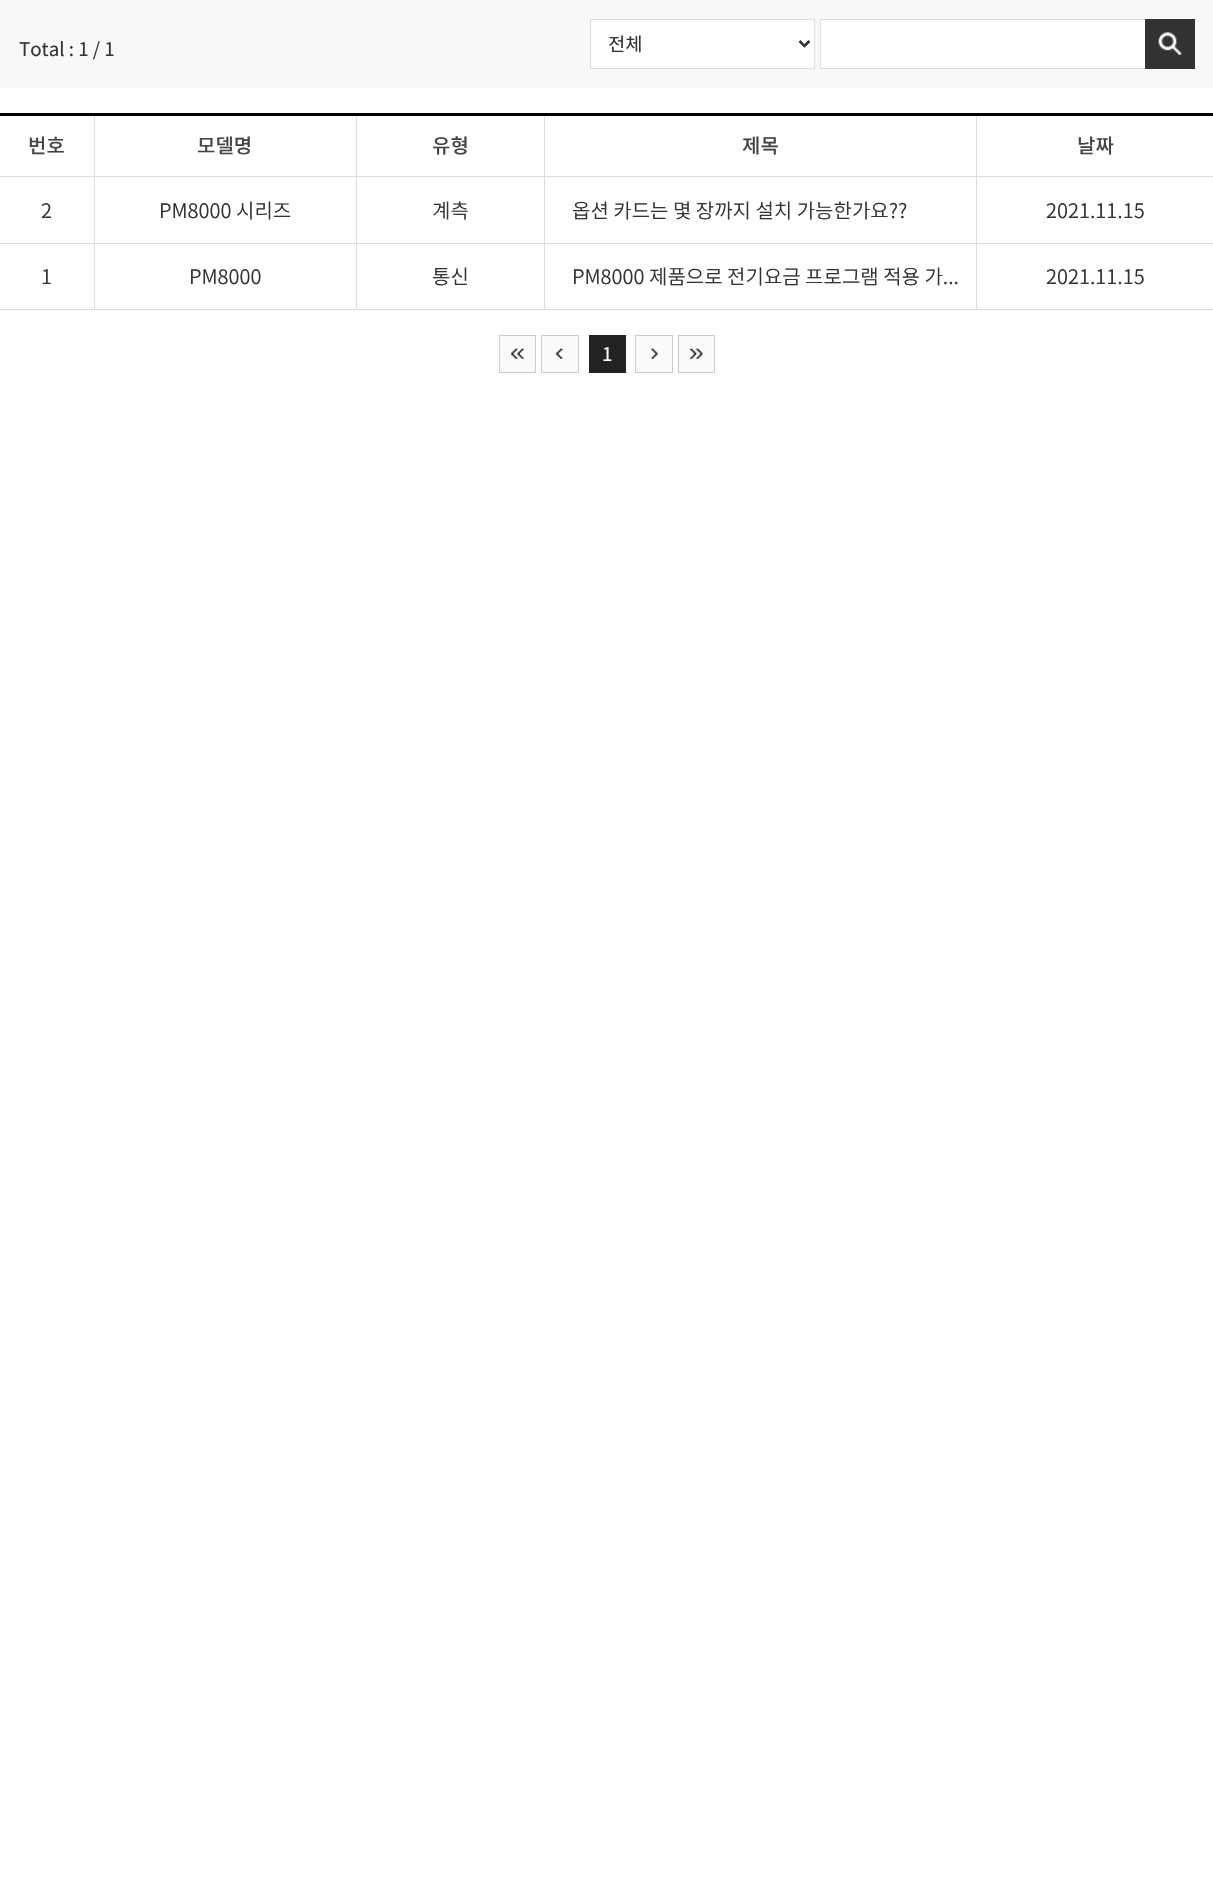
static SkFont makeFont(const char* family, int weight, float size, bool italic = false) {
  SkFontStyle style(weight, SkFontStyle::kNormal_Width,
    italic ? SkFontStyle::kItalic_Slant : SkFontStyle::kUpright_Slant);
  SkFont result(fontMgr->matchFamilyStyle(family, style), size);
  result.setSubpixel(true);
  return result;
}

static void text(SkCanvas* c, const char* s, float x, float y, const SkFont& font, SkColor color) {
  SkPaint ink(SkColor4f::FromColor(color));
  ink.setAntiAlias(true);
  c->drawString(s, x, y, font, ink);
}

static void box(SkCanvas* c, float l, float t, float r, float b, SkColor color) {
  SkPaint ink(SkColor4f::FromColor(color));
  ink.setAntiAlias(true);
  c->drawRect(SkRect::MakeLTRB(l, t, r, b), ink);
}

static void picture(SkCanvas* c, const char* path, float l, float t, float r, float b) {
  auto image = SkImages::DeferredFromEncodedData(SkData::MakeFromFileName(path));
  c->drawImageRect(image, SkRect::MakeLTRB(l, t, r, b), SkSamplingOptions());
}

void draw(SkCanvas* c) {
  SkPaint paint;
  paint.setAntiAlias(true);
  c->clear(0xffffffff);
  box(c, 0, 0, 1213, 88, 0xfff8f8f8);
  SkFont face1 = makeFont("Noto Sans KR", 400, 18.75f);
  text(c, "Total : 1 / 1", 19, 56, face1, 0xff333333);
  box(c, 821, 20, 1145, 68, 0xffffffff);
  paint.setStyle(SkPaint::kStroke_Style);
  paint.setStrokeWidth(1);
  paint.setColor(0xffdddddd);
  c->drawRect(SkRect::MakeLTRB(820.5f, 19.5f, 1194.5f, 68.5f), paint);
  paint.setStyle(SkPaint::kFill_Style);
  paint.setColor(0xffffffff);
  c->drawRect(SkRect::MakeLTRB(590.5f, 19.5f, 814.5f, 68.5f), paint);
  paint.setStyle(SkPaint::kStroke_Style);
  paint.setColor(0xffdddddd);
  c->drawRect(SkRect::MakeLTRB(590.5f, 19.5f, 814.5f, 68.5f), paint);
  paint.setStrokeWidth(2.5f);
  paint.setColor(0xff333333);
  c->drawPath(SkPathBuilder().moveTo(799.5f, 41).lineTo(804.5f, 46).lineTo(809.5f, 41).detach(), paint);
  text(c, "전체", 608, 51, face1, 0xff333333);
  box(c, 1145, 19, 1195, 69, 0xff333333);
  picture(c, "img_01.png", 1158, 32, 1182, 55);
  box(c, 976, 176, 1213, 177, 0xffdddddd);
  box(c, 976, 243, 1213, 244, 0xffdddddd);
  box(c, 976, 309, 1213, 310, 0xffdddddd);
  box(c, 976, 243, 977, 310, 0xffdddddd);
  box(c, 544, 243, 978, 244, 0xffdddddd);
  box(c, 976, 176, 977, 244, 0xffdddddd);
  box(c, 544, 176, 978, 177, 0xffdddddd);
  box(c, 544, 309, 978, 310, 0xffdddddd);
  box(c, 544, 243, 545, 310, 0xffdddddd);
  box(c, 356, 243, 545, 244, 0xffdddddd);
  box(c, 544, 176, 545, 244, 0xffdddddd);
  box(c, 356, 176, 545, 177, 0xffdddddd);
  box(c, 356, 309, 545, 310, 0xffdddddd);
  box(c, 356, 243, 357, 310, 0xffdddddd);
  box(c, 94, 243, 358, 244, 0xffdddddd);
  box(c, 356, 176, 357, 244, 0xffdddddd);
  box(c, 94, 176, 358, 177, 0xffdddddd);
  box(c, 94, 309, 358, 310, 0xffdddddd);
  box(c, 94, 243, 95, 310, 0xffdddddd);
  box(c, 0, 243, 95, 244, 0xffdddddd);
  box(c, 94, 176, 95, 244, 0xffdddddd);
  box(c, 0, 176, 95, 177, 0xffdddddd);
  box(c, 94, 114, 95, 178, 0xffdddddd);
  box(c, 356, 114, 357, 178, 0xffdddddd);
  box(c, 544, 114, 545, 178, 0xffdddddd);
  box(c, 976, 114, 977, 178, 0xffdddddd);
  box(c, 0, 113, 1213, 116, 0xff000000);
  SkFont face2 = makeFont("Noto Sans KR", 500, 20);
  text(c, "번호", 28, 153, face2, 0xff454545);
  text(c, "모델명", 197, 153, face2, 0xff454545);
  text(c, "유형", 432, 153, face2, 0xff454545);
  text(c, "제목", 742, 153, face2, 0xff454545);
  text(c, "날짜", 1077, 153, face2, 0xff454545);
  SkFont face3 = makeFont("Noto Sans KR", 300, 20);
  text(c, "2", 41, 218, face3, 0xff333333);
  text(c, "PM8000 시리즈", 159, 218, face3, 0xff333333);
  text(c, "계측", 432, 218, face3, 0xff333333);
  text(c, "옵션 카드는 몇 장까지 설치 가능한가요?\077", 572, 218, face3, 0xff333333);
  text(c, "2021.11.15", 1046, 218, face3, 0xff333333);
  box(c, 0, 309, 95, 310, 0xffdddddd);
  text(c, "1", 41, 284, face3, 0xff333333);
  text(c, "PM8000", 189, 284, face3, 0xff333333);
  text(c, "통신", 432, 284, face3, 0xff333333);
  text(c, "PM8000 제품으로 전기요금 프로그램 적용 가...", 572, 284, face3, 0xff333333);
  text(c, "2021.11.15", 1046, 284, face3, 0xff333333);
  box(c, 500, 336, 535, 372, 0xfffafafa);
  picture(c, "img_02.png", 511, 348, 524, 359);
  paint.setStrokeWidth(1);
  paint.setColor(0xffcccccc);
  c->drawRect(SkRect::MakeLTRB(499.5f, 335.5f, 535.5f, 372.5f), paint);
  box(c, 542, 336, 578, 372, 0xfffafafa);
  picture(c, "img_03.png", 556, 348, 563, 359);
  c->drawRect(SkRect::MakeLTRB(541.5f, 335.5f, 578.5f, 372.5f), paint);
  box(c, 589, 335, 626, 373, 0xff222222);
  text(c, "1", 602, 361, face1, 0xffffffff);
  box(c, 636, 336, 672, 372, 0xfffafafa);
  picture(c, "img_04.png", 651, 348, 658, 359);
  c->drawRect(SkRect::MakeLTRB(635.5f, 335.5f, 672.5f, 372.5f), paint);
  box(c, 679, 336, 714, 372, 0xfffafafa);
  picture(c, "img_05.png", 690, 348, 703, 359);
  c->drawRect(SkRect::MakeLTRB(678.5f, 335.5f, 714.5f, 372.5f), paint);
}
